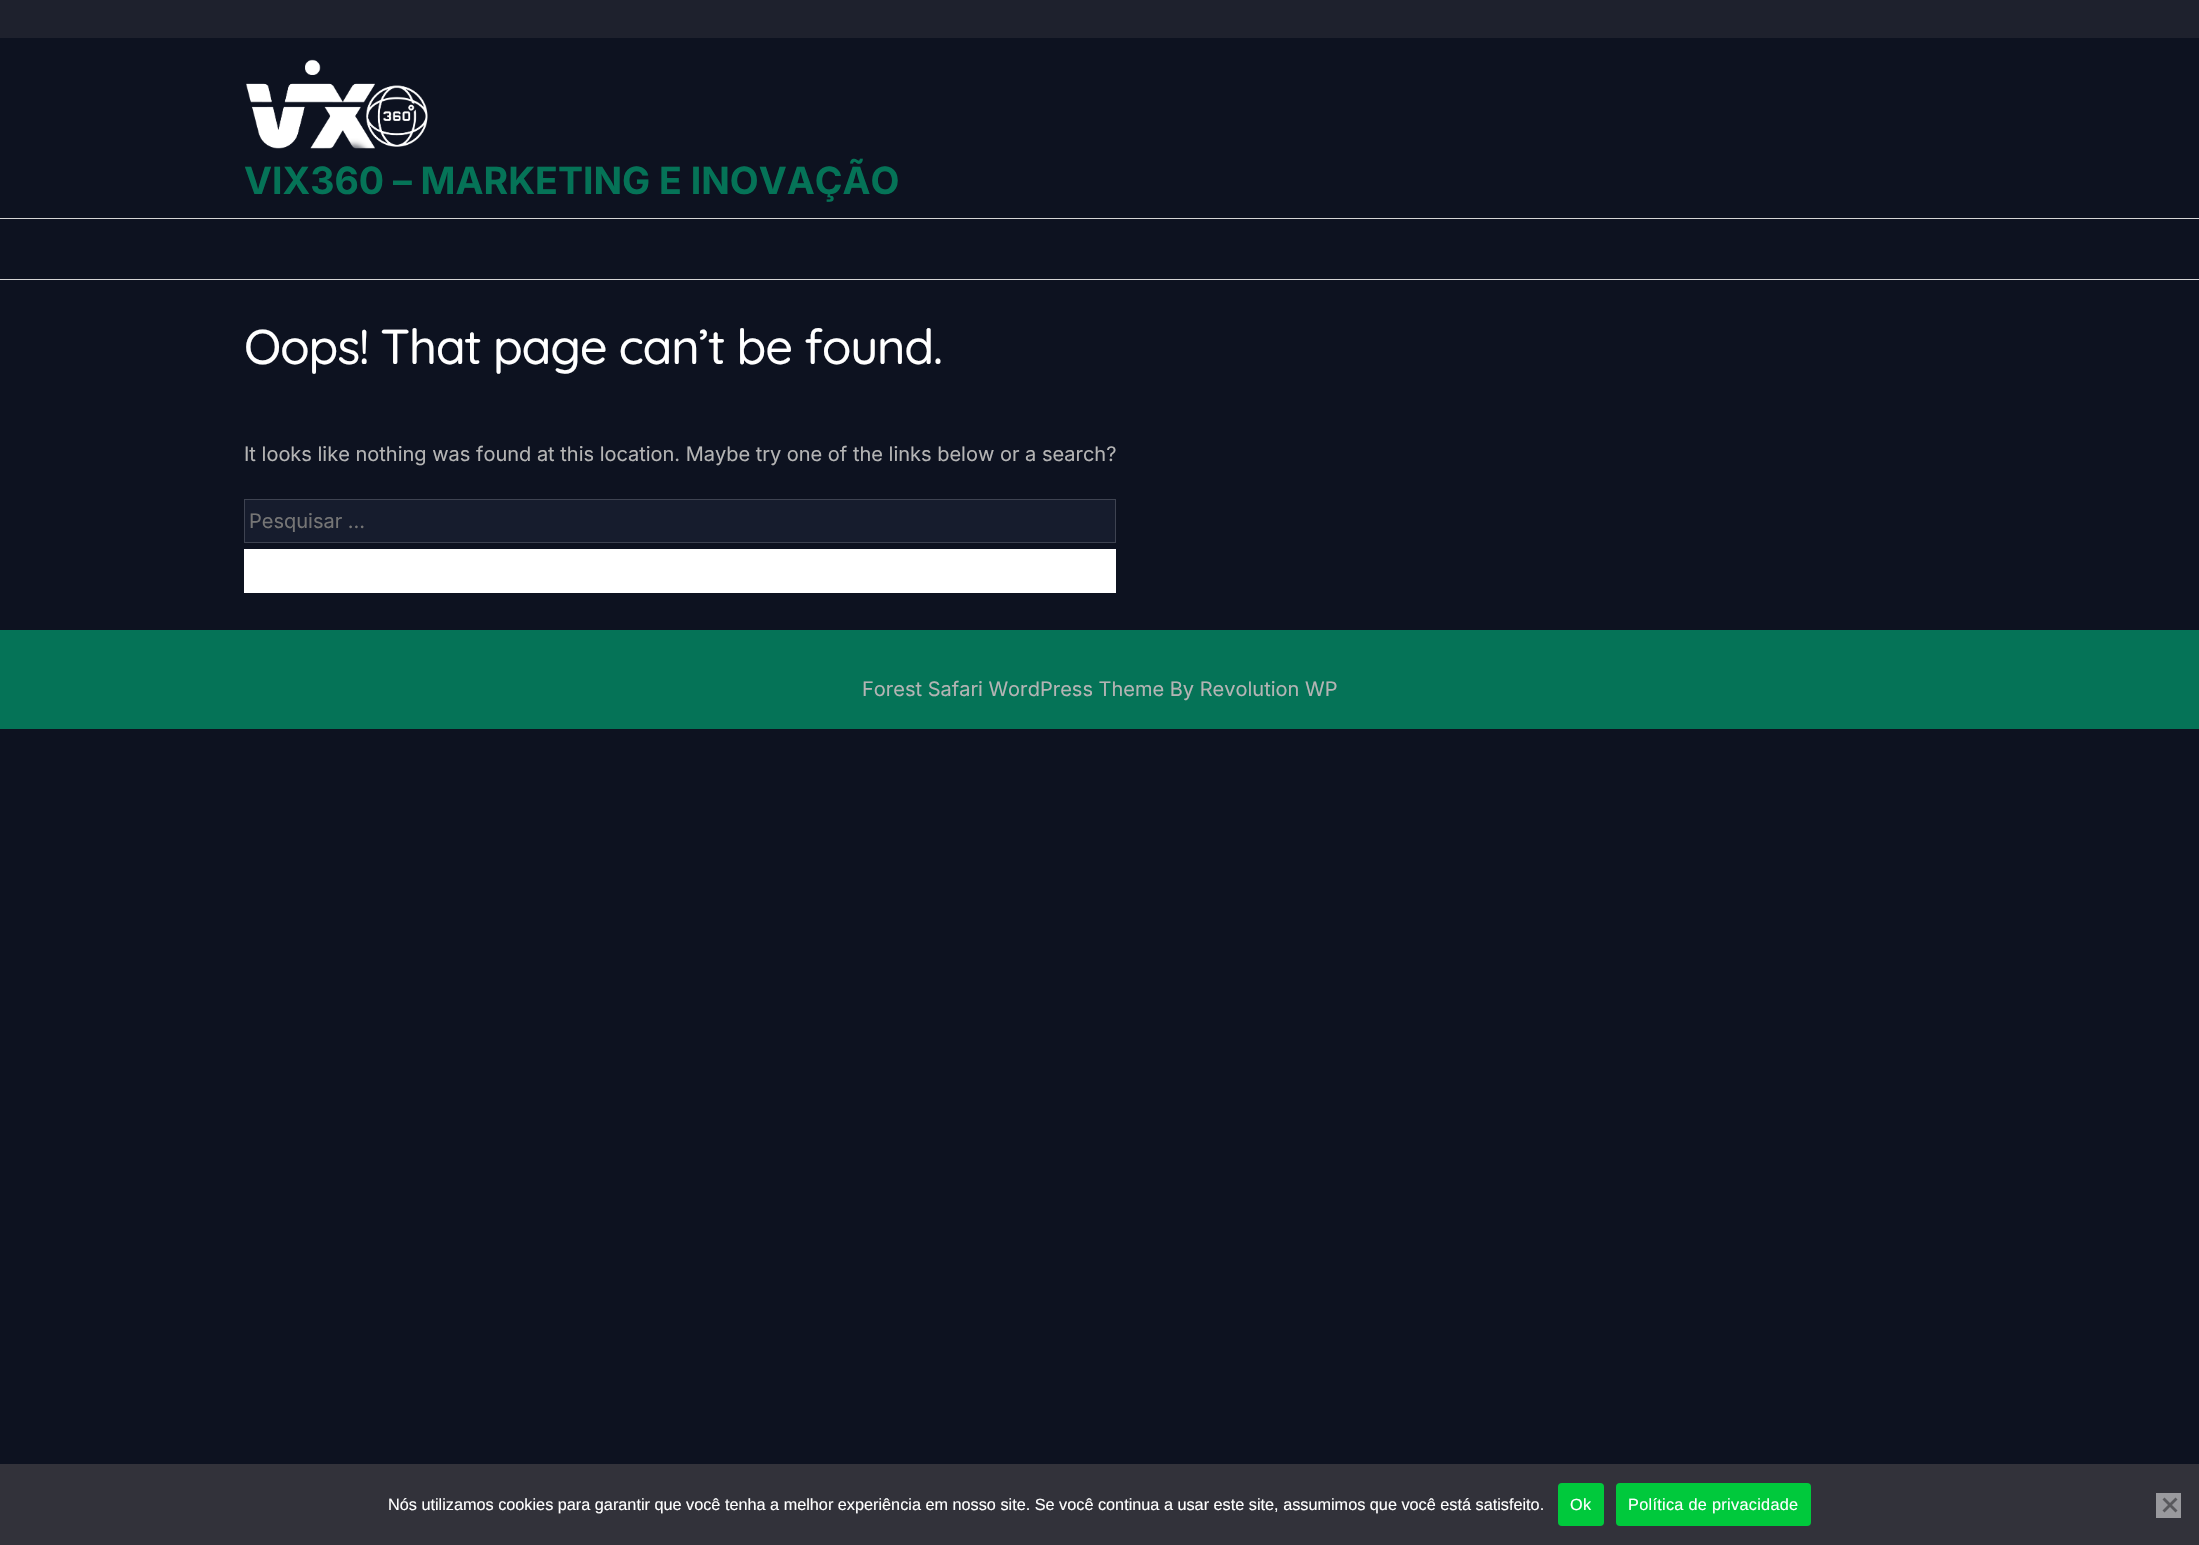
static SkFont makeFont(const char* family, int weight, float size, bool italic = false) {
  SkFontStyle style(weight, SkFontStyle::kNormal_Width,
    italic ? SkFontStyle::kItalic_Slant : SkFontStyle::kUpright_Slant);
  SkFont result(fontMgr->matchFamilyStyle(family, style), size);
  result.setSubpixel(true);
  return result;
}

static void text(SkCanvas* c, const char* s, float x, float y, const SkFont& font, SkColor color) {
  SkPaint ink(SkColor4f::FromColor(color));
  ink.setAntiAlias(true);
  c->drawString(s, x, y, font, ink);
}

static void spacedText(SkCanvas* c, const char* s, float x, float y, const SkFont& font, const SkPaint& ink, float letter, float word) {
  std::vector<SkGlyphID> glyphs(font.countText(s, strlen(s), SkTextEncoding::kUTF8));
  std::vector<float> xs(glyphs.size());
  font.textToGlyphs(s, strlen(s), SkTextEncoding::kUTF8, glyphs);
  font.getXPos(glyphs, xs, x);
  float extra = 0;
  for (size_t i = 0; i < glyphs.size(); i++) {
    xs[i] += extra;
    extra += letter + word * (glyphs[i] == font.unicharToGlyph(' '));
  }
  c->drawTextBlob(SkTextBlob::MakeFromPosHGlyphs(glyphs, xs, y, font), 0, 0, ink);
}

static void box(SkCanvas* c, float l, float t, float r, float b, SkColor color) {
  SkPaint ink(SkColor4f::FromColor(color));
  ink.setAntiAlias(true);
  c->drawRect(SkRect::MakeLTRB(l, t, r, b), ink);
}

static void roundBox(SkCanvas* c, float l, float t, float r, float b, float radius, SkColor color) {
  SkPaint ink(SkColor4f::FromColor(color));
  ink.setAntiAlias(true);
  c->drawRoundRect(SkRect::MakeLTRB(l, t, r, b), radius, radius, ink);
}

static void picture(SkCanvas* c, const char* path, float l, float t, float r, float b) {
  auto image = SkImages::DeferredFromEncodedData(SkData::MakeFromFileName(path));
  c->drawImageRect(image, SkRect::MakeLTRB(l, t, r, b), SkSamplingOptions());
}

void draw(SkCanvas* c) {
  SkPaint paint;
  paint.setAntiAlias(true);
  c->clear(0xff0d1220);
  box(c, 0, 0, 2199, 38, 0xff1e212d);
  picture(c, "img_01.png", 246, 59, 428, 149);
  SkFont face1 = makeFont("Inter", 700, 37.5f);
  text(c, "VIX360 – MARKETING E INOVAÇÃO", 244, 194, face1, 0xff057357);
  box(c, 0, 218, 2199, 219, 0xffd5d5d5);
  box(c, 0, 279, 2199, 280, 0xffd5d5d5);
  SkFont face2 = makeFont("Quicksand", 500, 48.75f);
  paint.setColor(0xffffffff);
  spacedText(c, "Oops! That page can’t be found.", 244, 364, face2, paint, -1.25f, 0);
  SkFont face3 = makeFont("Inter", 400, 20);
  text(c, "It looks like nothing was found at this location. Maybe try one of the links below or a search?", 244, 461, face3, 0xffb4b4b4);
  paint.setColor(0xff161c2d);
  c->drawRect(SkRect::MakeLTRB(244.5f, 499.5f, 1115.5f, 542.5f), paint);
  paint.setStyle(SkPaint::kStroke_Style);
  paint.setStrokeWidth(1);
  paint.setColor(0xff3e4351);
  c->drawRect(SkRect::MakeLTRB(244.5f, 499.5f, 1115.5f, 542.5f), paint);
  text(c, "Pesquisar …", 249, 528, face3, 0xff757575);
  box(c, 244, 549, 1116, 593, 0xffffffff);
  box(c, 0, 630, 2199, 729, 0xff057357);
  text(c, "Forest Safari WordPress Theme By Revolution WP", 862, 696, face3, 0xffb4b4b4);
  box(c, 0, 1464, 2199, 1545, 0xff32323a);
  SkFont face4 = makeFont("Liberation Sans", 400, 16.25f);
  text(c, "Nós utilizamos cookies para garantir que você tenha a melhor experiência em nosso site. Se você continua a usar este site, assumimos que você está satisfeito.", 388, 1510, face4, 0xffffffff);
  roundBox(c, 1558, 1483, 1604, 1526, 4, 0xff00c93c);
  paint.setStyle(SkPaint::kFill_Style);
  paint.setColor(0xffffffff);
  spacedText(c, "Ok", 1570, 1510, face4, paint, 0.3f, 0);
  roundBox(c, 1616, 1483, 1811, 1526, 4, 0xff00c93c);
  spacedText(c, "Política de privacidade", 1628, 1510, face4, paint, 0.3f, 0);
  box(c, 2156, 1493, 2181, 1518, 0xff99999d);
  paint.setColor(0xff59595d);
  c->drawPath(SkPathBuilder().moveTo(2175.5f, 1497.5f).lineTo(2177.5f, 1499.5f).lineTo(2164.5f, 1512.5f).lineTo(2162.5f, 1510.5f).close().detach(), paint);
  c->drawPath(SkPathBuilder().moveTo(2162.5f, 1499.5f).lineTo(2164.5f, 1497.5f).lineTo(2177.5f, 1510.5f).lineTo(2175.5f, 1512.5f).close().detach(), paint);
}
